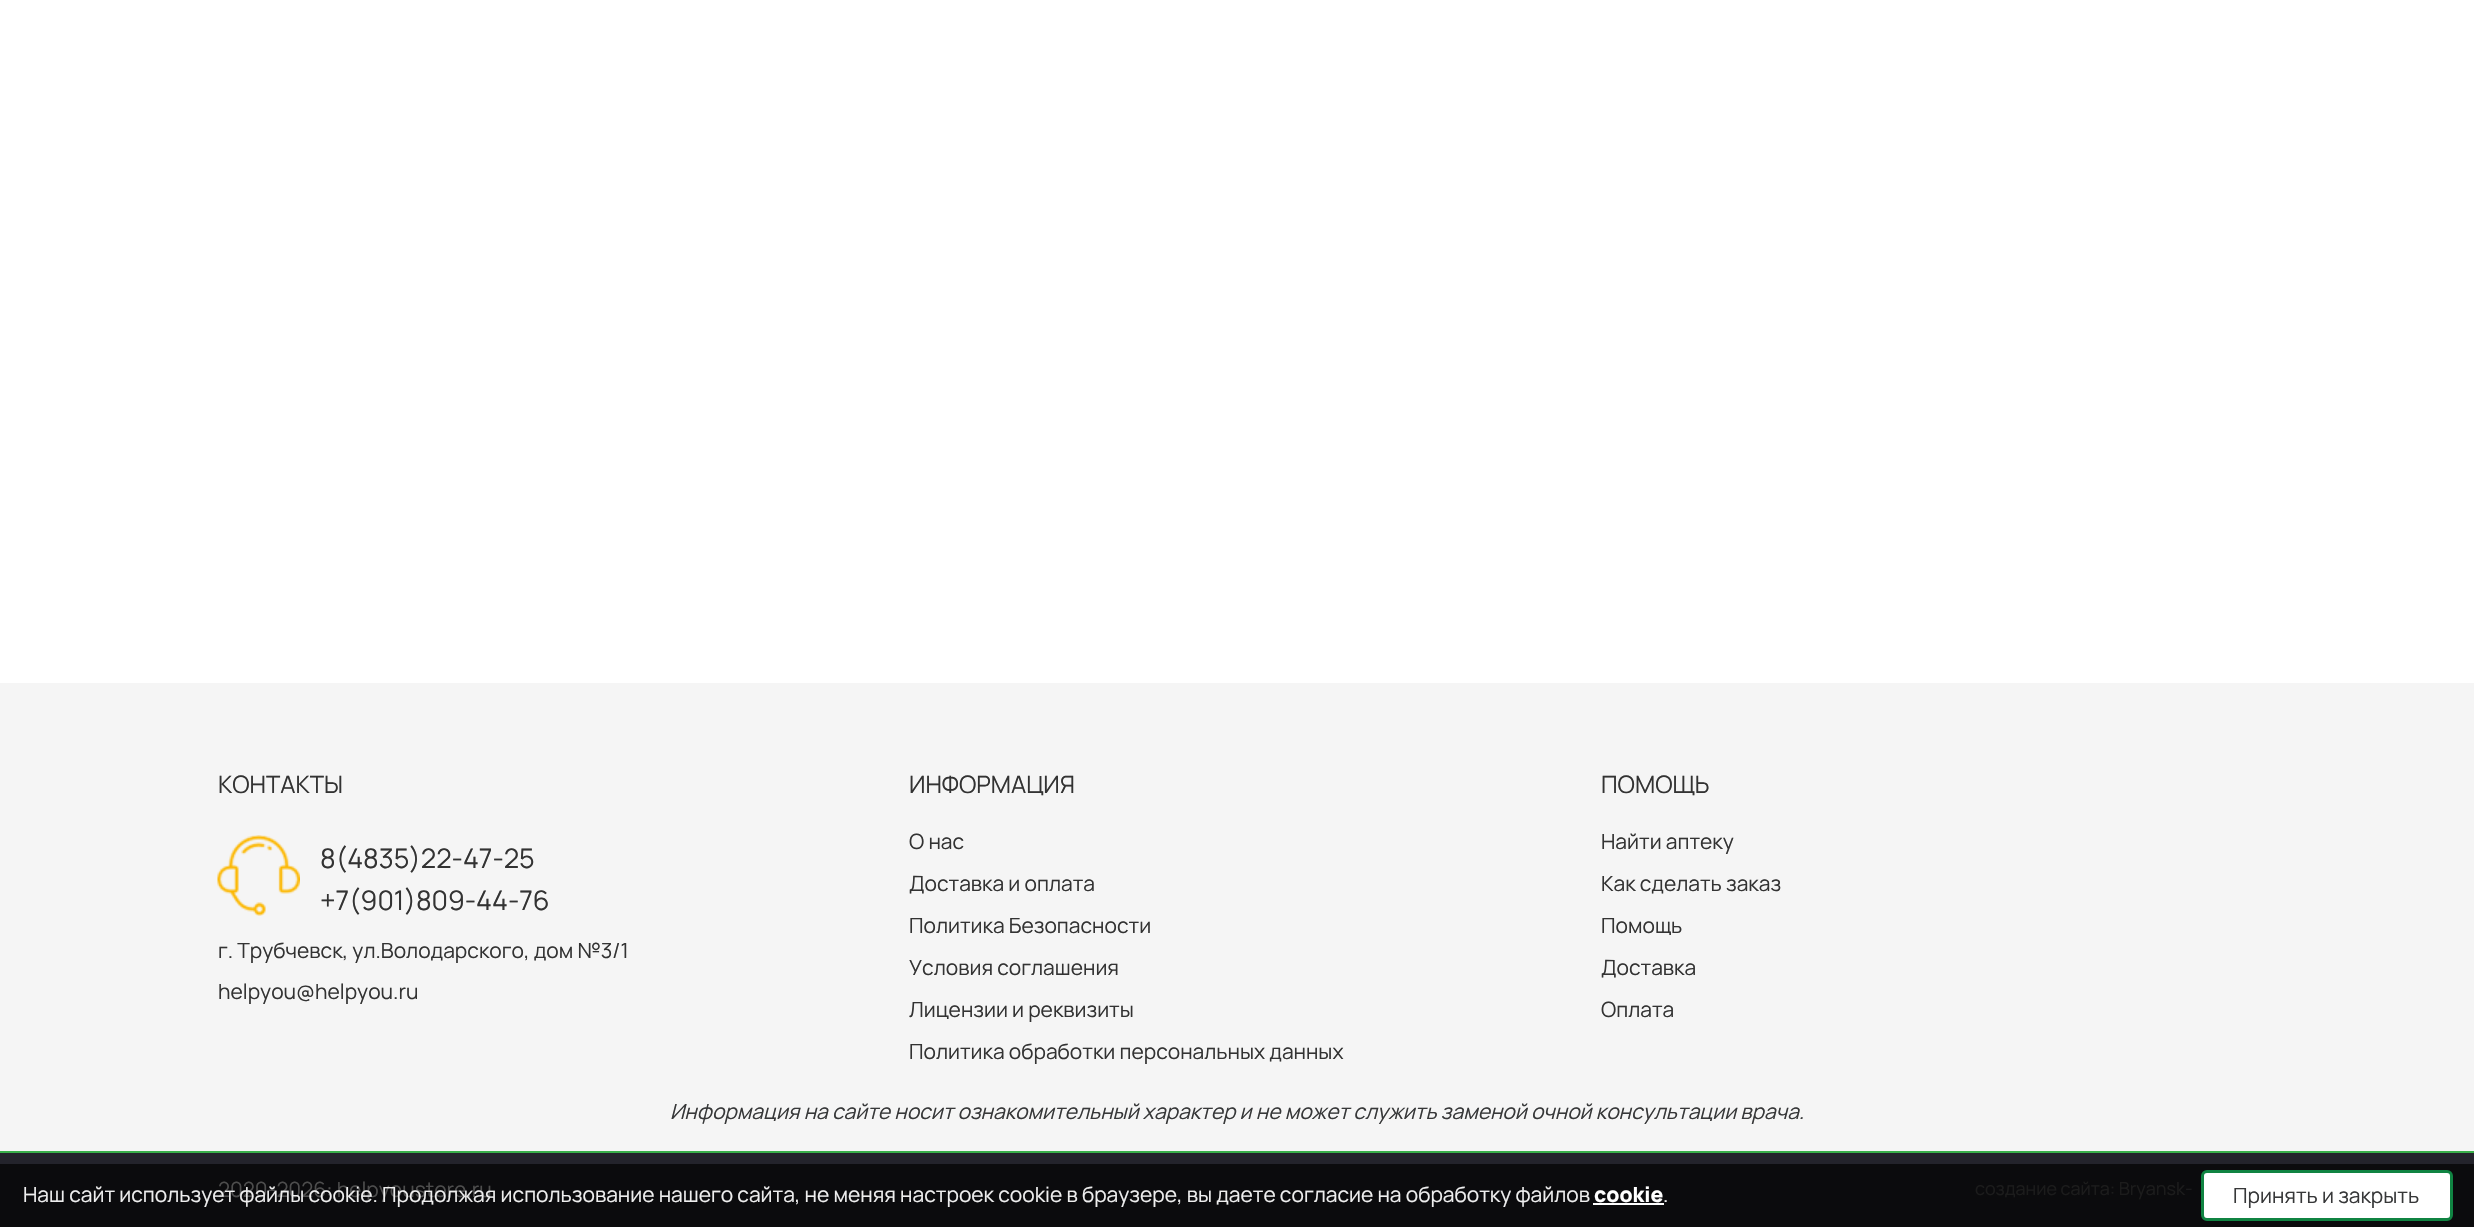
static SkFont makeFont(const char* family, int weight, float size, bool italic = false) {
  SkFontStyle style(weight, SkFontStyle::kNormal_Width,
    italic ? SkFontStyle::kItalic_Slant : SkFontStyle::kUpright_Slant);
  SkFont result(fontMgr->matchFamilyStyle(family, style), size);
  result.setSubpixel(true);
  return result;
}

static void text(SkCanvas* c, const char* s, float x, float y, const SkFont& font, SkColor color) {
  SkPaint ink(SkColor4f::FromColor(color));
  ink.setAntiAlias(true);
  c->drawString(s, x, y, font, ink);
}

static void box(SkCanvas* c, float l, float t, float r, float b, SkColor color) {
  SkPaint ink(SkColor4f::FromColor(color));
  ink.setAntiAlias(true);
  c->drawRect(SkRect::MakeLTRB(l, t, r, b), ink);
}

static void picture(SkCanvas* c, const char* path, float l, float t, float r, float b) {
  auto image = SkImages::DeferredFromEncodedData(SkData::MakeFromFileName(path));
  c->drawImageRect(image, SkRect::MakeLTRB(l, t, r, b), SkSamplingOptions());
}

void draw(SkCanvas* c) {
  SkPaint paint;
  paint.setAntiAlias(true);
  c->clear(0xffffffff);
  box(c, 0, 1153, 2474, 1164, 0xff23232b);
  box(c, 0, 1164, 2474, 1227, 0xff0b0b0d);
  box(c, 0, 683, 2474, 1151, 0xfff5f5f5);
  SkFont face1 = makeFont("Manrope", 400, 24);
  text(c, "КОНТАКТЫ", 218, 793, face1, 0xff333333);
  picture(c, "img_01.png", 217, 835, 300, 916);
  SkFont face2 = makeFont("Manrope", 400, 27);
  text(c, "8(4835)22-47-25", 320, 868, face2, 0xff333333);
  text(c, "+7(901)809-44-76", 320, 910, face2, 0xff333333);
  SkFont face3 = makeFont("Manrope", 400, 21);
  text(c, "г. Трубчевск, ул.Володарского, дом №3/1", 218, 958, face3, 0xff333333);
  text(c, "helpyou@helpyou.ru", 218, 999, face3, 0xff333333);
  text(c, "ИНФОРМАЦИЯ", 909, 793, face1, 0xff333333);
  text(c, "О нас", 909, 849, face3, 0xff333333);
  text(c, "Доставка и оплата", 909, 891, face3, 0xff333333);
  text(c, "Политика Безопасности", 909, 933, face3, 0xff333333);
  text(c, "Условия соглашения", 909, 975, face3, 0xff333333);
  text(c, "Лицензии и реквизиты", 909, 1017, face3, 0xff333333);
  text(c, "Политика обработки персональных данных", 909, 1059, face3, 0xff333333);
  text(c, "ПОМОЩЬ", 1601, 793, face1, 0xff333333);
  text(c, "Найти аптеку", 1601, 849, face3, 0xff333333);
  text(c, "Как сделать заказ", 1601, 891, face3, 0xff333333);
  text(c, "Помощь", 1601, 933, face3, 0xff333333);
  text(c, "Доставка", 1601, 975, face3, 0xff333333);
  text(c, "Оплата", 1601, 1017, face3, 0xff333333);
  SkFont face4 = makeFont("Manrope", 400, 21, true);
  text(c, "Информация на сайте носит ознакомительный характер и не может служить заменой очной консультации врача.", 670, 1119, face4, 0xff373839);
  box(c, 0, 1151, 2474, 1153, 0xff39af4a);
  text(c, "2020-2026: helpyoustore.ru", 218, 1197, face3, 0xff4d4d4d);
  SkFont face5 = makeFont("Manrope", 400, 18);
  text(c, "создание сайта: Bryansk-", 1975, 1195, face5, 0xff1c1c1c);
  text(c, "Наш сайт использует файлы cookie. Продолжая использование нашего сайта, не меняя настроек cookie в браузере, вы даете согласие на обработку файлов", 23, 1202, face3, 0xffeeeeee);
  SkFont face6 = makeFont("Manrope", 800, 21);
  text(c, "cookie", 1594, 1202, face6, 0xffffffff);
  box(c, 1593, 1203, 1664, 1205, 0xffffffff);
  text(c, ".", 1663, 1202, face3, 0xffeeeeee);
  paint.setColor(0xffffffff);
  c->drawRoundRect(SkRect::MakeLTRB(2202.5f, 1171.5f, 2451.5f, 1219.5f), 4.5f, 4.5f, paint);
  paint.setStyle(SkPaint::kStroke_Style);
  paint.setStrokeWidth(3);
  paint.setColor(0xff108442);
  c->drawRoundRect(SkRect::MakeLTRB(2202.5f, 1171.5f, 2451.5f, 1219.5f), 4.5f, 4.5f, paint);
  text(c, "Принять и закрыть", 2233, 1203, face3, 0xff373839);
}
